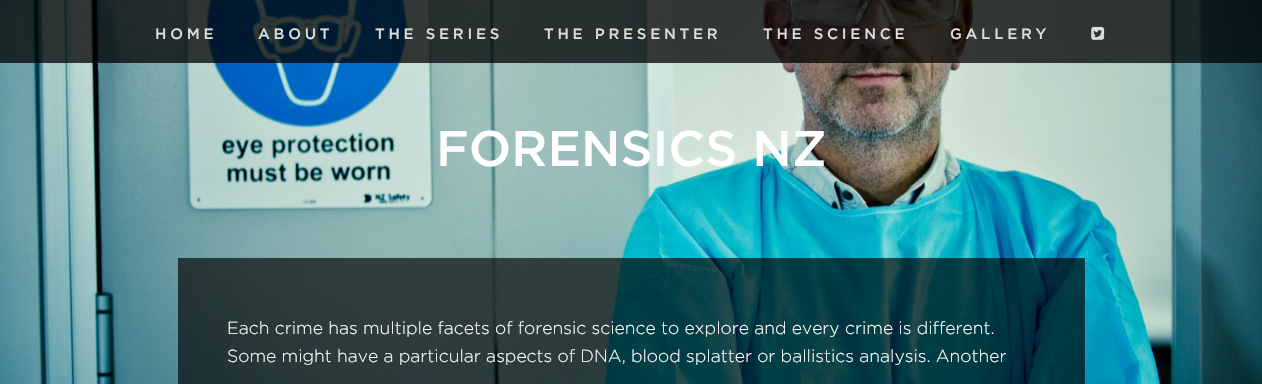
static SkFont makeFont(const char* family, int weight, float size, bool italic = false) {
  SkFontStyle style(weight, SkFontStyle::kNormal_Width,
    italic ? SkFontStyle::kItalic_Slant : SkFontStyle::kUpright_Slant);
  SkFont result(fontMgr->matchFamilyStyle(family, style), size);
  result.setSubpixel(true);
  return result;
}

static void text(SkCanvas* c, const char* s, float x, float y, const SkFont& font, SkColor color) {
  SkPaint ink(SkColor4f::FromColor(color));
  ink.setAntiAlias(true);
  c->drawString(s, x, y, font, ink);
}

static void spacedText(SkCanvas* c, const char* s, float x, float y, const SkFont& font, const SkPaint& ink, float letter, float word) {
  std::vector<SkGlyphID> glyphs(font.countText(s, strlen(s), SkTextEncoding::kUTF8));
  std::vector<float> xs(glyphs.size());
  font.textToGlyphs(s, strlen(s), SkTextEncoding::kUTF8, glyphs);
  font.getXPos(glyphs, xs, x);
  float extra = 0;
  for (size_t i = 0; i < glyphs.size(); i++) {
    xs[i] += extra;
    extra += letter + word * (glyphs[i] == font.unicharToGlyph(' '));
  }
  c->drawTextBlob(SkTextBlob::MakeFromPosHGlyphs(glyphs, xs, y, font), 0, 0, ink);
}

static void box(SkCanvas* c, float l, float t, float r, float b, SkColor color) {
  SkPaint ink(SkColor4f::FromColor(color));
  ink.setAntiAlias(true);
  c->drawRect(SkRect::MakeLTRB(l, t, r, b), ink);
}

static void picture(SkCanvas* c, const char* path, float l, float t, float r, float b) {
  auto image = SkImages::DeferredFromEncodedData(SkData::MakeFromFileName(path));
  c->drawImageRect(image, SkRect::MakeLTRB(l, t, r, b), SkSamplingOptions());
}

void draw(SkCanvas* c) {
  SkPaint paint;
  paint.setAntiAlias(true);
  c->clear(0xffffffff);
  picture(c, "img_01.png", 0, 0, 1262, 384);
  box(c, 0, 0, 1262, 63, 0xbf000000);
  SkFont face1 = makeFont("Gotham", 500, 15);
  paint.setColor(0xffdddddd);
  spacedText(c, "HOME", 155, 39, face1, paint, 3.75f, 0);
  spacedText(c, "ABOUT", 258, 39, face1, paint, 3.75f, 0);
  spacedText(c, "THE SERIES", 375, 39, face1, paint, 3.75f, 0);
  spacedText(c, "THE PRESENTER", 544, 39, face1, paint, 3.75f, 0);
  spacedText(c, "THE SCIENCE", 763, 39, face1, paint, 3.75f, 0);
  spacedText(c, "GALLERY", 950, 39, face1, paint, 3.75f, 0);
  picture(c, "img_02.png", 1091, 26, 1105, 40);
  SkFont face2 = makeFont("Gotham", 500, 50);
  text(c, "FORENSICS NZ", 436, 166, face2, 0xffffffff);
  box(c, 178, 258, 1085, 384, 0xa8000000);
  SkFont face3 = makeFont("Gotham", 300, 17.5f);
  text(c, "Each crime has multiple facets of forensic science to explore and every crime is different.", 227, 334, face3, 0xffffffff);
  text(c, "Some might have a particular aspects of DNA, blood splatter or ballistics analysis. Another", 227, 362, face3, 0xffffffff);
}
